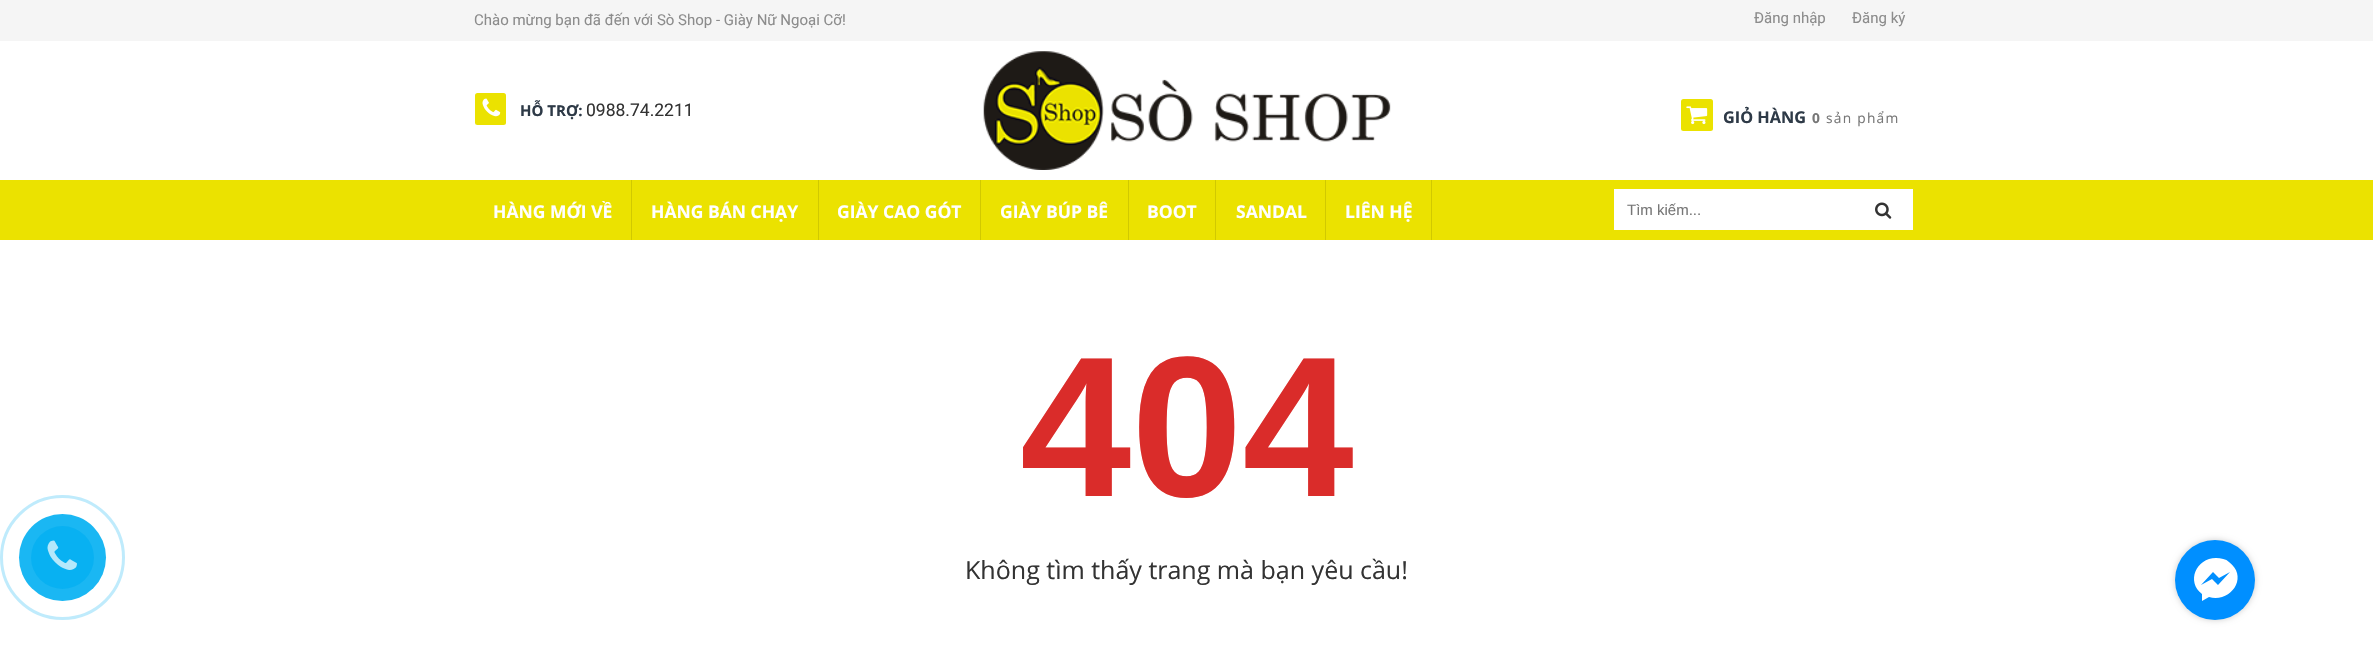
static SkFont makeFont(const char* family, int weight, float size, bool italic = false) {
  SkFontStyle style(weight, SkFontStyle::kNormal_Width,
    italic ? SkFontStyle::kItalic_Slant : SkFontStyle::kUpright_Slant);
  SkFont result(fontMgr->matchFamilyStyle(family, style), size);
  result.setSubpixel(true);
  return result;
}

static void text(SkCanvas* c, const char* s, float x, float y, const SkFont& font, SkColor color) {
  SkPaint ink(SkColor4f::FromColor(color));
  ink.setAntiAlias(true);
  c->drawString(s, x, y, font, ink);
}

static void spacedText(SkCanvas* c, const char* s, float x, float y, const SkFont& font, const SkPaint& ink, float letter, float word) {
  std::vector<SkGlyphID> glyphs(font.countText(s, strlen(s), SkTextEncoding::kUTF8));
  std::vector<float> xs(glyphs.size());
  font.textToGlyphs(s, strlen(s), SkTextEncoding::kUTF8, glyphs);
  font.getXPos(glyphs, xs, x);
  float extra = 0;
  for (size_t i = 0; i < glyphs.size(); i++) {
    xs[i] += extra;
    extra += letter + word * (glyphs[i] == font.unicharToGlyph(' '));
  }
  c->drawTextBlob(SkTextBlob::MakeFromPosHGlyphs(glyphs, xs, y, font), 0, 0, ink);
}

static void box(SkCanvas* c, float l, float t, float r, float b, SkColor color) {
  SkPaint ink(SkColor4f::FromColor(color));
  ink.setAntiAlias(true);
  c->drawRect(SkRect::MakeLTRB(l, t, r, b), ink);
}

static void roundBox(SkCanvas* c, float l, float t, float r, float b, float radius, SkColor color) {
  SkPaint ink(SkColor4f::FromColor(color));
  ink.setAntiAlias(true);
  c->drawRoundRect(SkRect::MakeLTRB(l, t, r, b), radius, radius, ink);
}

static void picture(SkCanvas* c, const char* path, float l, float t, float r, float b) {
  auto image = SkImages::DeferredFromEncodedData(SkData::MakeFromFileName(path));
  c->drawImageRect(image, SkRect::MakeLTRB(l, t, r, b), SkSamplingOptions());
}

void draw(SkCanvas* c) {
  SkPaint paint;
  paint.setAntiAlias(true);
  c->clear(0xffffffff);
  box(c, 0, 0, 2373, 41, 0xfff5f5f5);
  SkFont face1 = makeFont("Roboto", 400, 15);
  text(c, "Chào mừng bạn đã đến với Sò Shop - Giày Nữ Ngoại Cỡ!", 474, 25, face1, 0xff8c8c8c);
  text(c, "Đăng nhập", 1754, 23, face1, 0xff8c8c8c);
  text(c, "Đăng ký", 1852, 23, face1, 0xff8c8c8c);
  roundBox(c, 475, 93, 506, 125, 2.5f, 0xffebe200);
  picture(c, "img_01.png", 482, 98, 501, 117);
  SkFont face2 = makeFont("Open Sans", 700, 15);
  text(c, "HỖ TRỢ:", 520, 116, face2, 0xff2e3a47);
  SkFont face3 = makeFont("Roboto", 400, 17.5f);
  text(c, "0988.74.2211", 586, 116, face3, 0xff333333);
  picture(c, "img_02.png", 983, 51, 1391, 170);
  roundBox(c, 1681, 99, 1713, 131, 2.5f, 0xffebe200);
  picture(c, "img_03.png", 1686, 106, 1708, 125);
  SkFont face4 = makeFont("Open Sans", 700, 16.25f);
  text(c, "GIỎ HÀNG", 1723, 123, face4, 0xff2e3a47);
  SkFont face5 = makeFont("Open Sans", 700, 13.75f);
  paint.setColor(0xff777777);
  spacedText(c, "0", 1812, 123, face5, paint, 1.25f, 0);
  SkFont face6 = makeFont("Open Sans", 400, 13.75f);
  spacedText(c, "sản phẩm", 1826, 123, face6, paint, 1.25f, 0);
  box(c, 0, 180, 2373, 240, 0xffebe200);
  box(c, 631, 180, 632, 240, 0xffd1c900);
  SkFont face7 = makeFont("Open Sans", 700, 17.5f);
  text(c, "HÀNG MỚI VỀ", 493, 218, face7, 0xffffffff);
  box(c, 818, 180, 819, 240, 0xffd1c900);
  text(c, "HÀNG BÁN CHẠY", 651, 218, face7, 0xffffffff);
  box(c, 980, 180, 981, 240, 0xffd1c900);
  text(c, "GIÀY CAO GÓT", 837, 218, face7, 0xffffffff);
  box(c, 1128, 180, 1129, 240, 0xffd1c900);
  text(c, "GIÀY BÚP BÊ", 1000, 218, face7, 0xffffffff);
  box(c, 1215, 180, 1216, 240, 0xffd1c900);
  text(c, "BOOT", 1147, 218, face7, 0xffffffff);
  box(c, 1325, 180, 1326, 240, 0xffd1c900);
  text(c, "SANDAL", 1236, 218, face7, 0xffffffff);
  box(c, 1431, 180, 1432, 240, 0xffd1c900);
  text(c, "LIÊN HỆ", 1345, 218, face7, 0xffffffff);
  box(c, 1614, 189, 1913, 230, 0xffffffff);
  SkFont face8 = makeFont("Liberation Sans", 400, 15);
  text(c, "Tìm kiếm...", 1627, 215, face8, 0xff777777);
  picture(c, "img_04.png", 1875, 202, 1892, 219);
  paint.setStyle(SkPaint::kStroke_Style);
  paint.setStrokeWidth(3);
  paint.setColor(0xffbfebfc);
  c->drawCircle(62.5f, 557.5f, 61, paint);
  paint.setStyle(SkPaint::kFill_Style);
  paint.setColor(0xff1ab7f3);
  c->drawCircle(62.5f, 557.5f, 43.5f, paint);
  paint.setColor(0xff08b1f2);
  c->drawCircle(62.5f, 557.5f, 31.5f, paint);
  picture(c, "img_05.png", 47, 540, 77, 570);
  SkFont face9 = makeFont("Liberation Sans", 700, 200);
  text(c, "404", 1020, 496, face9, 0xffda2c2a);
  SkFont face10 = makeFont("Open Sans", 400, 25);
  text(c, "Không tìm thấy trang mà bạn yêu cầu!", 965, 579, face10, 0xff333333);
  paint.setColor(0x33000000);
  paint.setMaskFilter(SkMaskFilter::MakeBlur(kNormal_SkBlurStyle, 3));
  c->drawRoundRect(SkRect::MakeLTRB(2175, 540, 2255, 620), 40, 40, paint);
  paint.setMaskFilter(nullptr);
  paint.setColor(0xff008fff);
  c->drawCircle(2215, 580, 40, paint);
  paint.setColor(0xffffffff);
  c->drawPath(SkPathBuilder().moveTo(2216, 558).cubicTo(2196, 558, 2186, 582, 2202, 594).lineTo(2202, 601).lineTo(2209, 597).cubicTo(2231, 603, 2249, 577, 2229, 562).cubicTo(2226, 559, 2221, 558, 2216, 558).close().moveTo(2218, 585).lineTo(2212, 579).lineTo(2201, 585).lineTo(2213, 572).lineTo(2219, 578).lineTo(2230, 572).close().detach(), paint);
}
